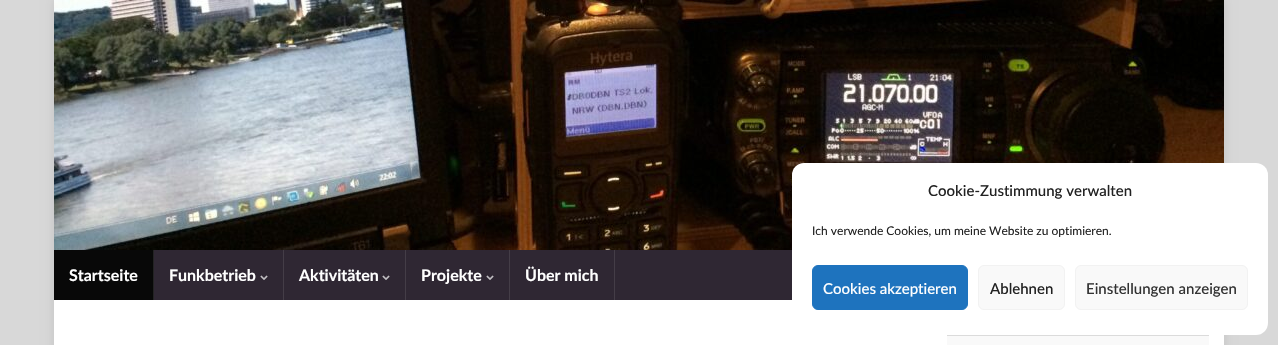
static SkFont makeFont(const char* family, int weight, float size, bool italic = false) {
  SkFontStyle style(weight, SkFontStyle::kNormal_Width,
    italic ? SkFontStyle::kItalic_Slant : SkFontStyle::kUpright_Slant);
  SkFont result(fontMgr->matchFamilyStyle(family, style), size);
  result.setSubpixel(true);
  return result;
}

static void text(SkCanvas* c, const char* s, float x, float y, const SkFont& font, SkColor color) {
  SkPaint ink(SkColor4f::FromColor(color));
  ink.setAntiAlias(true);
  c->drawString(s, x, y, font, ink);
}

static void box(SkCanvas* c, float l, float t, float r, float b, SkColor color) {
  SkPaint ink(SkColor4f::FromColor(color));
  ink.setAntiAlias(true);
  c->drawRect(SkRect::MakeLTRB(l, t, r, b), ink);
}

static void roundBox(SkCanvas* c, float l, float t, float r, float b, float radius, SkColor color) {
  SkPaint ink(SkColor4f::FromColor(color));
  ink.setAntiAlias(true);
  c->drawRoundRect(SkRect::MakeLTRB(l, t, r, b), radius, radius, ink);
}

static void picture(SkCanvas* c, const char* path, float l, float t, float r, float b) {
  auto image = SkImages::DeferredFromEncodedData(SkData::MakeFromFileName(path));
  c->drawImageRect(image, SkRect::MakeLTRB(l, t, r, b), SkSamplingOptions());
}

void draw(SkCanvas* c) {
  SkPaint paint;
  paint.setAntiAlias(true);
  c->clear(0xffd8d8d8);
  paint.setColor(0x1a000000);
  paint.setMaskFilter(SkMaskFilter::MakeBlur(kNormal_SkBlurStyle, 5));
  c->drawRect(SkRect::MakeLTRB(54, 0, 1224, 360), paint);
  paint.setMaskFilter(nullptr);
  picture(c, "img_01.png", 54, 0, 1224, 250);
  box(c, 154, 250, 792, 300, 0xff2f2733);
  box(c, 153, 250, 154, 300, 0xff232323);
  box(c, 54, 250, 153, 300, 0xff080808);
  SkFont face1 = makeFont("Lato", 700, 16);
  text(c, "Startseite", 69, 281, face1, 0xffffffff);
  box(c, 283, 250, 284, 300, 0xff443d47);
  text(c, "Funkbetrieb", 169, 281, face1, 0xffffffff);
  picture(c, "img_02.png", 260, 275, 268, 280);
  box(c, 405, 250, 406, 300, 0xff443d47);
  text(c, "Aktivitäten", 299, 281, face1, 0xffffffff);
  picture(c, "img_02.png", 382, 275, 390, 280);
  box(c, 509, 250, 510, 300, 0xff443d47);
  text(c, "Projekte", 421, 281, face1, 0xffffffff);
  picture(c, "img_02.png", 486, 275, 494, 280);
  box(c, 614, 250, 615, 300, 0xff443d47);
  text(c, "Über mich", 525, 281, face1, 0xffffffff);
  box(c, 54, 300, 1224, 345, 0xffffffff);
  box(c, 947, 336, 1209, 345, 0xfff9f9f9);
  box(c, 947, 335, 1209, 336, 0xffdbdbdb);
  roundBox(c, 792, 163, 1268, 335, 12, 0xffffffff);
  SkFont face2 = makeFont("Lato", 500, 15);
  text(c, "Cookie-Zustimmung verwalten", 928, 196, face2, 0xff222222);
  SkFont face3 = makeFont("Lato", 400, 12);
  text(c, "Ich verwende Cookies, um meine Website zu optimieren.", 812, 235, face3, 0xff222222);
  paint.setColor(0xff1e73be);
  c->drawRoundRect(SkRect::MakeLTRB(812.5f, 265.5f, 967.5f, 309.5f), 5.5f, 5.5f, paint);
  paint.setStyle(SkPaint::kStroke_Style);
  paint.setStrokeWidth(1);
  c->drawRoundRect(SkRect::MakeLTRB(812.5f, 265.5f, 967.5f, 309.5f), 5.5f, 5.5f, paint);
  text(c, "Cookies akzeptieren", 823, 294, face2, 0xffffffff);
  paint.setStyle(SkPaint::kFill_Style);
  paint.setColor(0xfff9f9f9);
  c->drawRoundRect(SkRect::MakeLTRB(978.5f, 265.5f, 1064.5f, 309.5f), 5.5f, 5.5f, paint);
  paint.setStyle(SkPaint::kStroke_Style);
  paint.setColor(0xfff2f2f2);
  c->drawRoundRect(SkRect::MakeLTRB(978.5f, 265.5f, 1064.5f, 309.5f), 5.5f, 5.5f, paint);
  text(c, "Ablehnen", 990, 294, face2, 0xff222222);
  paint.setStyle(SkPaint::kFill_Style);
  paint.setColor(0xfff9f9f9);
  c->drawRoundRect(SkRect::MakeLTRB(1075.5f, 265.5f, 1247.5f, 309.5f), 5.5f, 5.5f, paint);
  paint.setStyle(SkPaint::kStroke_Style);
  paint.setColor(0xfff2f2f2);
  c->drawRoundRect(SkRect::MakeLTRB(1075.5f, 265.5f, 1247.5f, 309.5f), 5.5f, 5.5f, paint);
  text(c, "Einstellungen anzeigen", 1086, 294, face2, 0xff333333);
}
